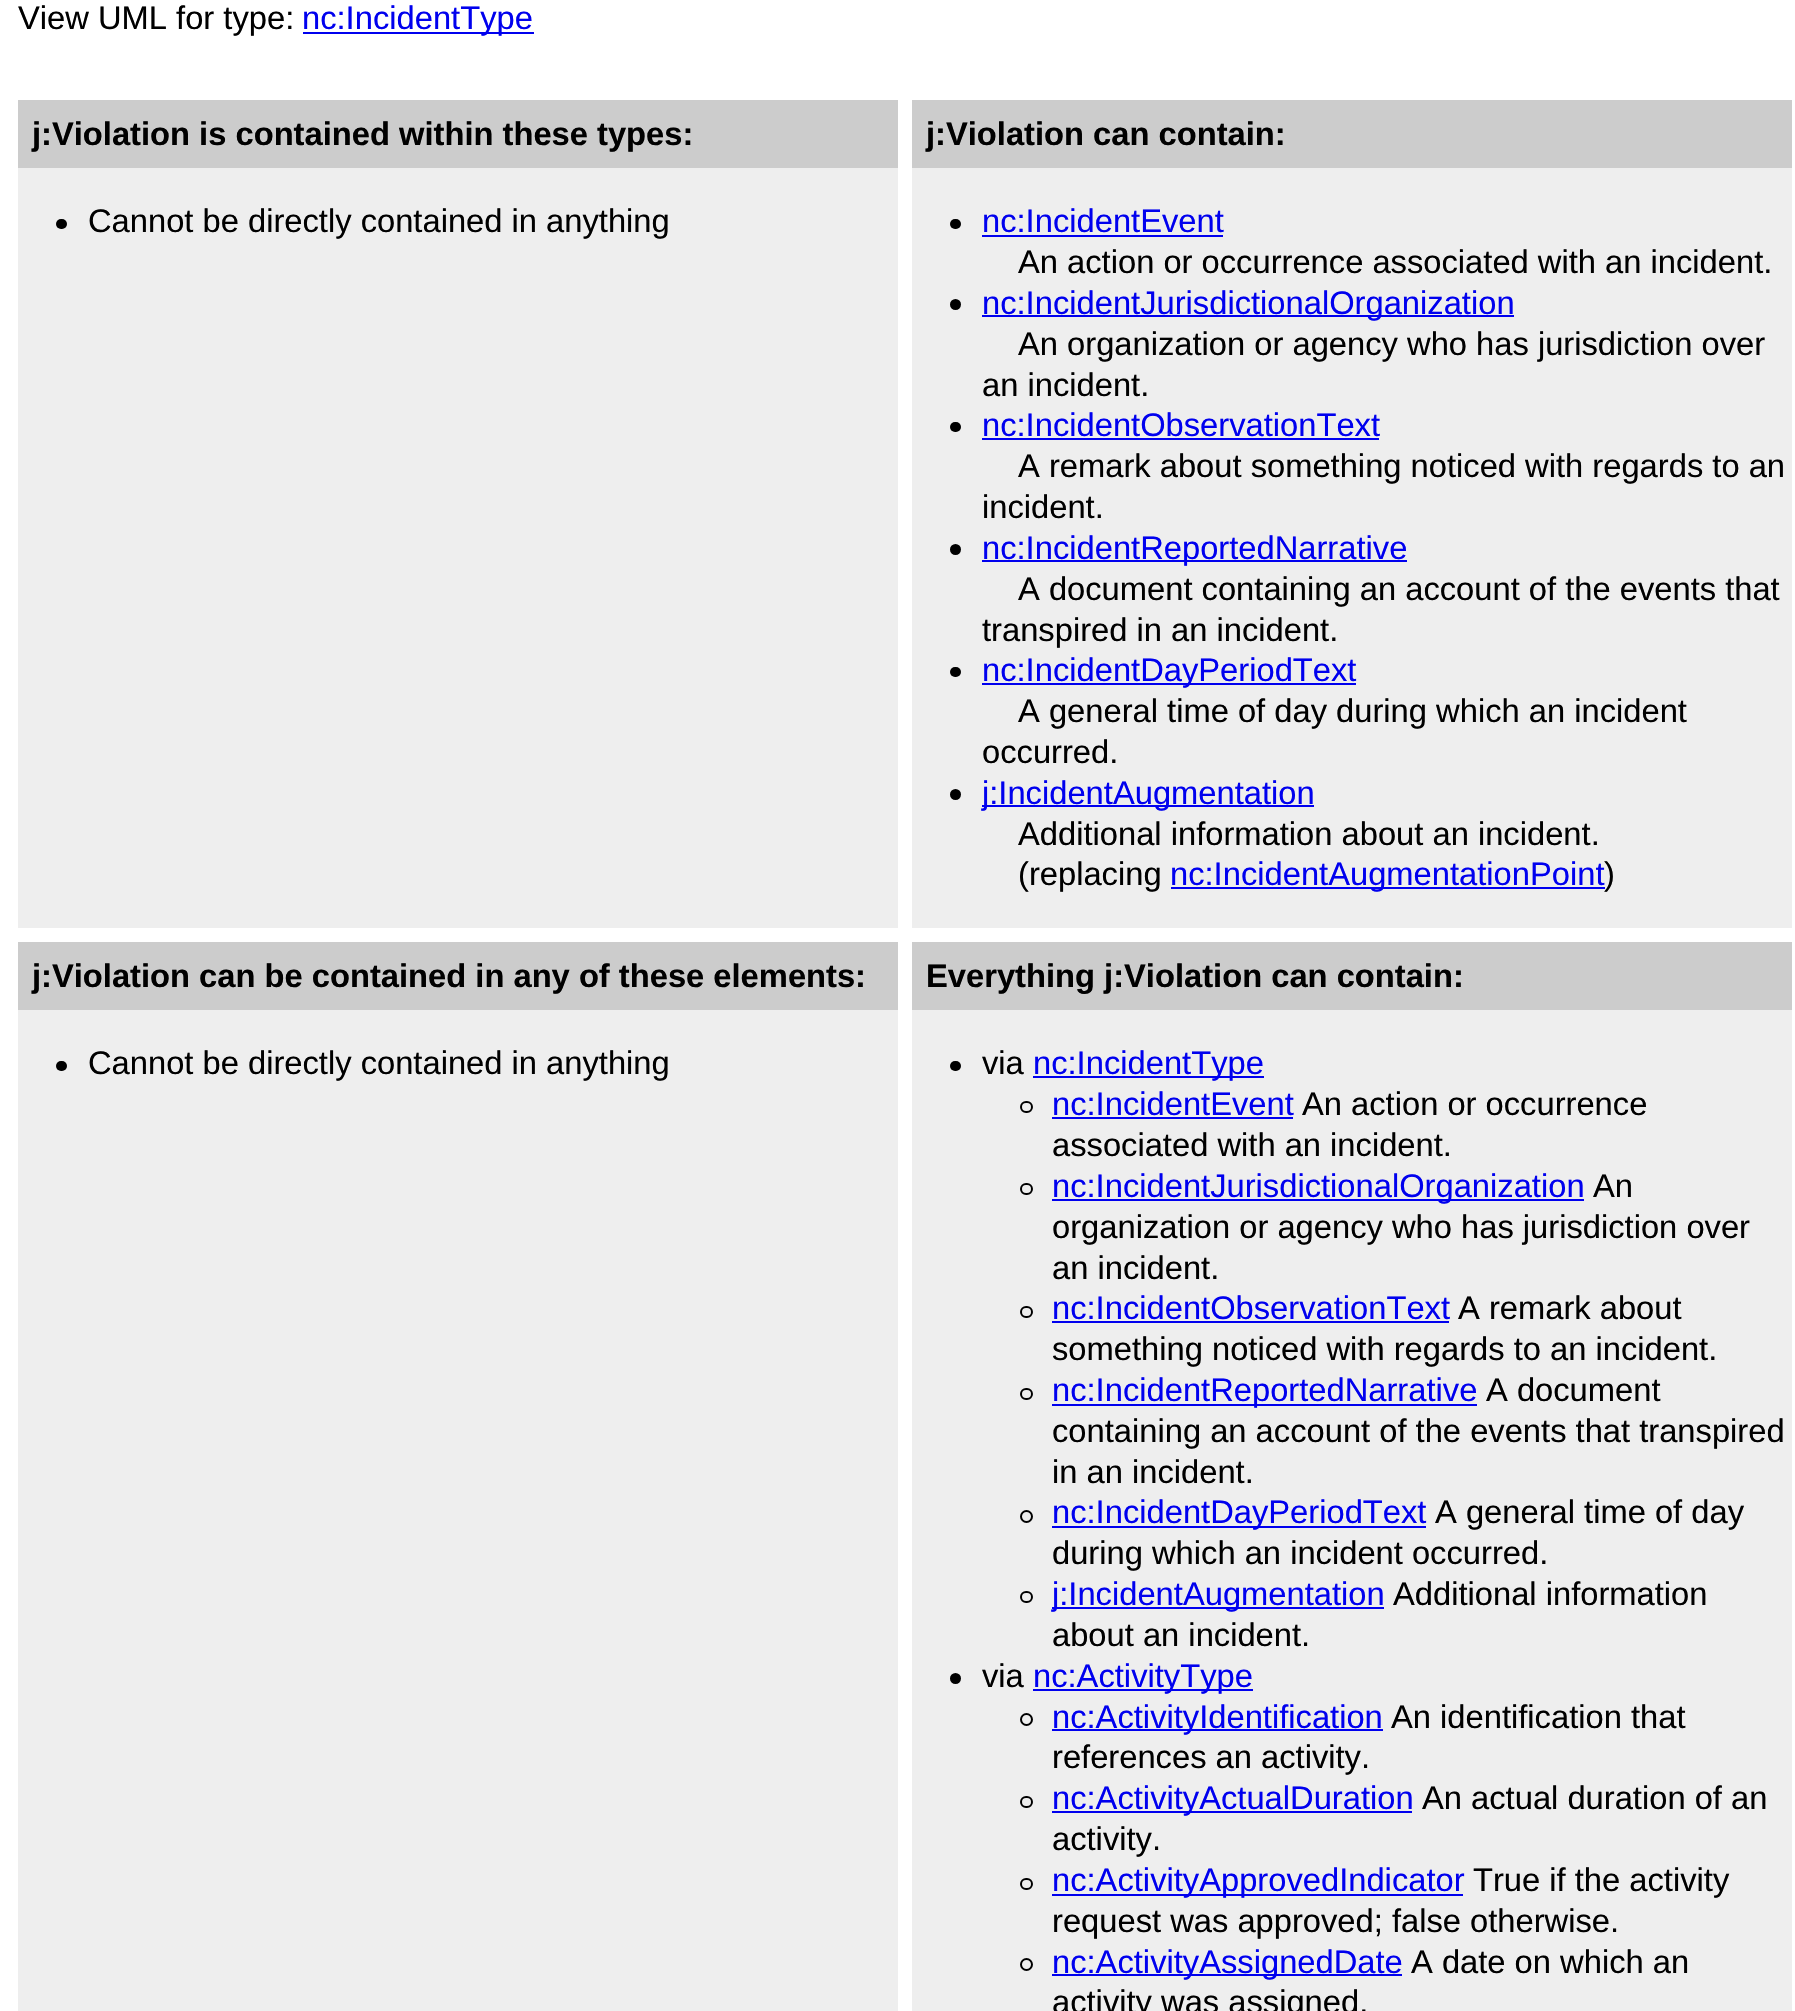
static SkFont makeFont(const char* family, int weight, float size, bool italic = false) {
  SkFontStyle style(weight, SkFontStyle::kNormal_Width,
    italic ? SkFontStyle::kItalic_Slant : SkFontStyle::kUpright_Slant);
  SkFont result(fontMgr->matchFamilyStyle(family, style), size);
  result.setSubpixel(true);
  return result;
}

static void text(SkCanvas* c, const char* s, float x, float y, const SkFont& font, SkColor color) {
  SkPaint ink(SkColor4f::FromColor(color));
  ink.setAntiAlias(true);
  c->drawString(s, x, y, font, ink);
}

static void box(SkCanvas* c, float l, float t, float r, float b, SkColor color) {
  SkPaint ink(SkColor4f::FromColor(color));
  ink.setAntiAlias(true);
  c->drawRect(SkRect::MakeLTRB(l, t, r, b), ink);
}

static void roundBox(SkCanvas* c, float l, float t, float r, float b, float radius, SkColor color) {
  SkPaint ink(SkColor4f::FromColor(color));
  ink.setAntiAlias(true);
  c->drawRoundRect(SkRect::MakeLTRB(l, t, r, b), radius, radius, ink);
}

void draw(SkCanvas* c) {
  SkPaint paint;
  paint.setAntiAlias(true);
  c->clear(0xffffffff);
  SkFont face1 = makeFont("Liberation Sans", 400, 32.7f);
  text(c, "View UML for type:", 18, 29, face1, 0xff000000);
  box(c, 303, 32, 534, 34, 0xff0000ee);
  text(c, "nc:IncidentType", 302, 29, face1, 0xff0000ee);
  box(c, 18, 168, 898, 928, 0xffeeeeee);
  box(c, 18, 100, 898, 168, 0xffcccccc);
  SkFont face2 = makeFont("Liberation Sans", 700, 32.7f);
  text(c, "j:Violation is contained within these types:", 32, 145, face2, 0xff000000);
  roundBox(c, 56, 219, 67, 229, 5, 0xff000000);
  text(c, "Cannot be directly contained in anything", 88, 232, face1, 0xff000000);
  box(c, 912, 168, 1792, 928, 0xffeeeeee);
  box(c, 912, 100, 1792, 168, 0xffcccccc);
  text(c, "j:Violation can contain:", 926, 145, face2, 0xff000000);
  roundBox(c, 950, 219, 961, 229, 5, 0xff000000);
  text(c, "nc:IncidentEvent", 982, 232, face1, 0xff0000ee);
  box(c, 982, 235, 1223, 237, 0xff0000ee);
  text(c, "An action or occurrence associated with an incident.", 1018, 273, face1, 0xff000000);
  paint.setColor(0xff000000);
  c->drawCircle(955.5f, 304.5f, 5.5f, paint);
  box(c, 982, 315, 1514, 317, 0xff0000ee);
  text(c, "nc:IncidentJurisdictionalOrganization", 982, 314, face1, 0xff0000ee);
  text(c, "An organization or agency who has jurisdiction over", 1018, 355, face1, 0xff000000);
  text(c, "an incident.", 982, 396, face1, 0xff000000);
  roundBox(c, 950, 422, 961, 432, 5, 0xff000000);
  text(c, "nc:IncidentObservationText", 982, 436, face1, 0xff0000ee);
  box(c, 982, 438, 1379, 440, 0xff0000ee);
  text(c, "A remark about something noticed with regards to an", 1018, 477, face1, 0xff000000);
  text(c, "incident.", 982, 518, face1, 0xff000000);
  c->drawCircle(955.5f, 549.5f, 5.5f, paint);
  box(c, 982, 560, 1407, 562, 0xff0000ee);
  text(c, "nc:IncidentReportedNarrative", 982, 559, face1, 0xff0000ee);
  text(c, "A document containing an account of the events that", 1018, 600, face1, 0xff000000);
  text(c, "transpired in an incident.", 982, 641, face1, 0xff000000);
  roundBox(c, 950, 667, 961, 677, 5, 0xff000000);
  box(c, 982, 683, 1356, 685, 0xff0000ee);
  text(c, "nc:IncidentDayPeriodText", 982, 681, face1, 0xff0000ee);
  text(c, "A general time of day during which an incident", 1018, 722, face1, 0xff000000);
  text(c, "occurred.", 982, 763, face1, 0xff000000);
  c->drawCircle(955.5f, 794.5f, 5.5f, paint);
  box(c, 982, 805, 1314, 807, 0xff0000ee);
  text(c, "j:IncidentAugmentation", 982, 804, face1, 0xff0000ee);
  text(c, "Additional information about an incident.", 1018, 845, face1, 0xff000000);
  text(c, "(replacing", 1018, 885, face1, 0xff000000);
  box(c, 1171, 887, 1605, 889, 0xff0000ee);
  text(c, "nc:IncidentAugmentationPoint", 1170, 885, face1, 0xff0000ee);
  text(c, ")", 1604, 885, face1, 0xff000000);
  box(c, 18, 1010, 898, 2011, 0xffeeeeee);
  box(c, 18, 942, 898, 1010, 0xffcccccc);
  text(c, "j:Violation can be contained in any of these elements:", 32, 987, face2, 0xff000000);
  roundBox(c, 56, 1061, 67, 1071, 5, 0xff000000);
  text(c, "Cannot be directly contained in anything", 88, 1074, face1, 0xff000000);
  box(c, 912, 1010, 1792, 2011, 0xffeeeeee);
  box(c, 912, 942, 1792, 1010, 0xffcccccc);
  text(c, "Everything j:Violation can contain:", 926, 987, face2, 0xff000000);
  roundBox(c, 950, 1061, 961, 1071, 5, 0xff000000);
  text(c, "via", 982, 1074, face1, 0xff000000);
  box(c, 1033, 1076, 1264, 1078, 0xff0000ee);
  text(c, "nc:IncidentType", 1033, 1074, face1, 0xff0000ee);
  paint.setStyle(SkPaint::kStroke_Style);
  paint.setStrokeWidth(2);
  c->drawRoundRect(SkRect::MakeLTRB(1021, 1102, 1032, 1112), 5, 5, paint);
  text(c, "nc:IncidentEvent", 1052, 1115, face1, 0xff0000ee);
  box(c, 1052, 1117, 1293, 1119, 0xff0000ee);
  text(c, "An action or occurrence", 1302, 1115, face1, 0xff000000);
  text(c, "associated with an incident.", 1052, 1156, face1, 0xff000000);
  c->drawRoundRect(SkRect::MakeLTRB(1021, 1184, 1032, 1194), 5, 5, paint);
  box(c, 1052, 1199, 1584, 1201, 0xff0000ee);
  text(c, "nc:IncidentJurisdictionalOrganization", 1052, 1197, face1, 0xff0000ee);
  text(c, "An", 1593, 1197, face1, 0xff000000);
  text(c, "organization or agency who has jurisdiction over", 1052, 1238, face1, 0xff000000);
  text(c, "an incident.", 1052, 1279, face1, 0xff000000);
  c->drawRoundRect(SkRect::MakeLTRB(1021, 1307, 1032, 1317), 5, 5, paint);
  text(c, "nc:IncidentObservationText", 1052, 1319, face1, 0xff0000ee);
  box(c, 1052, 1321, 1449, 1323, 0xff0000ee);
  text(c, "A remark about", 1458, 1319, face1, 0xff000000);
  text(c, "something noticed with regards to an incident.", 1052, 1360, face1, 0xff000000);
  c->drawRoundRect(SkRect::MakeLTRB(1021, 1389, 1032, 1399), 5, 5, paint);
  box(c, 1052, 1404, 1477, 1406, 0xff0000ee);
  text(c, "nc:IncidentReportedNarrative", 1052, 1401, face1, 0xff0000ee);
  text(c, "A document", 1486, 1401, face1, 0xff000000);
  text(c, "containing an account of the events that transpired", 1052, 1442, face1, 0xff000000);
  text(c, "in an incident.", 1052, 1483, face1, 0xff000000);
  c->drawCircle(1026.5f, 1516.5f, 5.5f, paint);
  box(c, 1052, 1526, 1426, 1528, 0xff0000ee);
  text(c, "nc:IncidentDayPeriodText", 1052, 1523, face1, 0xff0000ee);
  text(c, "A general time of day", 1435, 1523, face1, 0xff000000);
  text(c, "during which an incident occurred.", 1052, 1564, face1, 0xff000000);
  c->drawRoundRect(SkRect::MakeLTRB(1021, 1592, 1032, 1602), 5, 5, paint);
  box(c, 1052, 1607, 1384, 1609, 0xff0000ee);
  text(c, "j:IncidentAugmentation", 1052, 1605, face1, 0xff0000ee);
  text(c, "Additional information", 1393, 1605, face1, 0xff000000);
  text(c, "about an incident.", 1052, 1646, face1, 0xff000000);
  paint.setStyle(SkPaint::kFill_Style);
  c->drawCircle(955.5f, 1678.5f, 5.5f, paint);
  text(c, "via", 982, 1687, face1, 0xff000000);
  box(c, 1033, 1689, 1253, 1691, 0xff0000ee);
  text(c, "nc:ActivityType", 1033, 1687, face1, 0xff0000ee);
  paint.setStyle(SkPaint::kStroke_Style);
  c->drawCircle(1026.5f, 1719.5f, 5.5f, paint);
  box(c, 1052, 1729, 1383, 1731, 0xff0000ee);
  text(c, "nc:ActivityIdentification", 1052, 1728, face1, 0xff0000ee);
  text(c, "An identification that", 1391, 1728, face1, 0xff000000);
  text(c, "references an activity.", 1052, 1768, face1, 0xff000000);
  c->drawRoundRect(SkRect::MakeLTRB(1021, 1797, 1032, 1807), 5, 5, paint);
  box(c, 1052, 1811, 1412, 1813, 0xff0000ee);
  text(c, "nc:ActivityActualDuration", 1052, 1809, face1, 0xff0000ee);
  text(c, "An actual duration of an", 1422, 1809, face1, 0xff000000);
  text(c, "activity.", 1052, 1850, face1, 0xff000000);
  c->drawRoundRect(SkRect::MakeLTRB(1021, 1879, 1032, 1889), 5, 5, paint);
  box(c, 1052, 1894, 1463, 1896, 0xff0000ee);
  text(c, "nc:ActivityApprovedIndicator", 1052, 1891, face1, 0xff0000ee);
  text(c, "True if the activity", 1473, 1891, face1, 0xff000000);
  text(c, "request was approved; false otherwise.", 1052, 1932, face1, 0xff000000);
  c->drawCircle(1026.5f, 1964.5f, 5.5f, paint);
  box(c, 1052, 1974, 1402, 1976, 0xff0000ee);
  text(c, "nc:ActivityAssignedDate", 1052, 1973, face1, 0xff0000ee);
  text(c, "A date on which an", 1411, 1973, face1, 0xff000000);
  text(c, "activity was assigned.", 1052, 2013, face1, 0xff000000);
}
